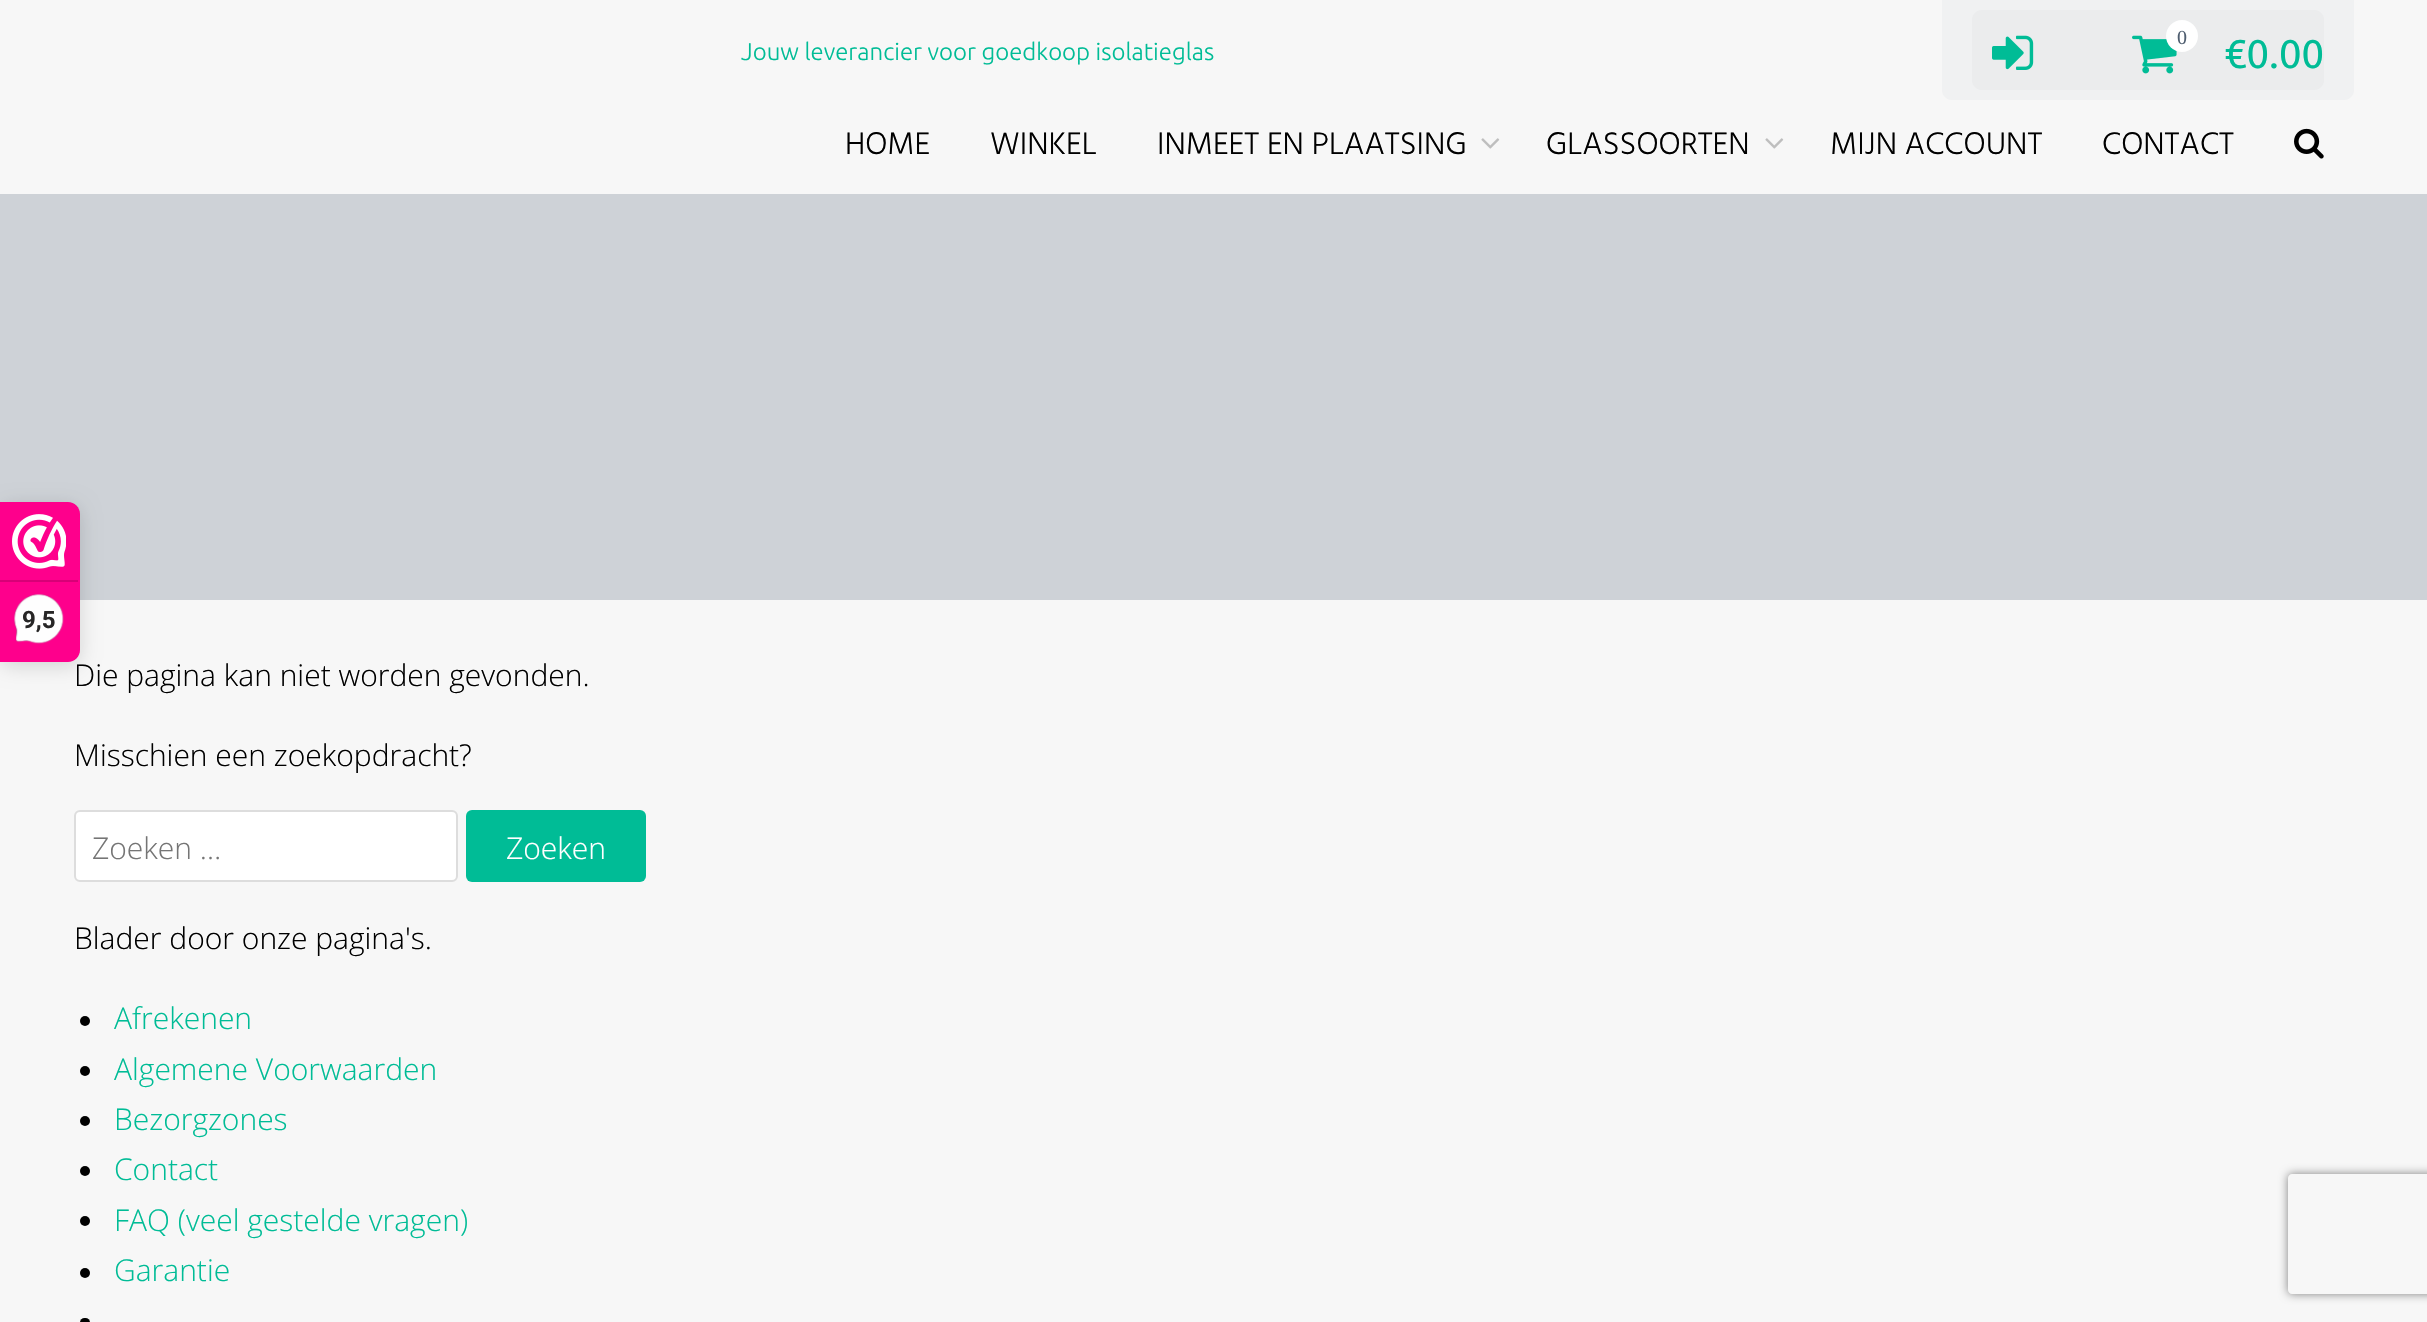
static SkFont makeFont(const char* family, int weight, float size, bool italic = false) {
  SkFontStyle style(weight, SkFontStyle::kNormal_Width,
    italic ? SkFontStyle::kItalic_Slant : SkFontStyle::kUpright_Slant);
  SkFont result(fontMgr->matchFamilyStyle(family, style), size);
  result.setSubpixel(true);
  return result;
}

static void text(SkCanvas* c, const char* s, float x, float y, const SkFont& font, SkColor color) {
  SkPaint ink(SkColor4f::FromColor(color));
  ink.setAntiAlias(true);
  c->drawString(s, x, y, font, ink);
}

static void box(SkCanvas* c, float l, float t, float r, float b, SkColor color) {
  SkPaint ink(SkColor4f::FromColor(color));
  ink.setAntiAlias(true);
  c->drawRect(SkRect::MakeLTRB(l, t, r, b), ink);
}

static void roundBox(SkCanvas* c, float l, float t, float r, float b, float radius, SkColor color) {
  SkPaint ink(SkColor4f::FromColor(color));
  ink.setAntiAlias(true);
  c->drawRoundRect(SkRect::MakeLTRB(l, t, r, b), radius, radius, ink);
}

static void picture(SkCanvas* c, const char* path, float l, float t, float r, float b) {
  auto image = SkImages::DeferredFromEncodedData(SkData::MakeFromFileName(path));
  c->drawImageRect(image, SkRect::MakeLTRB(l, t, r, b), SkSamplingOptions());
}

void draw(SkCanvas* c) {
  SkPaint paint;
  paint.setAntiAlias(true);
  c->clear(0xfff7f7f7);
  box(c, 0, 194, 2427, 600, 0xffced2d7);
  paint.setColor(0x26000000);
  paint.setMaskFilter(SkMaskFilter::MakeBlur(kNormal_SkBlurStyle, 10));
  c->drawRoundRect(SkRect::MakeLTRB(0, 506, 80, 666), 12, 12, paint);
  paint.setMaskFilter(nullptr);
  paint.setColor(0xfffe008c);
  c->drawPath(SkPathBuilder().moveTo(0, 502).lineTo(68, 502).cubicTo(74.5f, 502, 80, 507.5f, 80, 514).lineTo(80, 650).cubicTo(80, 656.5f, 74.5f, 662, 68, 662).lineTo(0, 662).close().detach(), paint);
  picture(c, "img_01.png", 12, 514, 66, 569);
  box(c, 0, 580, 78, 582, 0xffd80077);
  picture(c, "img_02.png", 14, 594, 64, 644);
  SkFont face1 = makeFont("Roboto", 700, 24);
  text(c, "9,5", 22, 628, face1, 0xff272626);
  SkFont face2 = makeFont("Ubuntu", 300, 24);
  text(c, "Jouw leverancier voor goedkoop isolatieglas", 741, 60, face2, 0xff00bc96);
  paint.setColor(0xfff0f1f2);
  c->drawPath(SkPathBuilder().moveTo(1942, 0).lineTo(2354, 0).lineTo(2354, 90).cubicTo(2354, 95.5f, 2349.5f, 100, 2344, 100).lineTo(1952, 100).cubicTo(1946.5f, 100, 1942, 95.5f, 1942, 90).close().detach(), paint);
  paint.setColor(0xffebeced);
  c->drawPath(SkPathBuilder().moveTo(1982, 10).lineTo(2082, 10).lineTo(2082, 90).lineTo(1982, 90).cubicTo(1976.5f, 90, 1972, 85.5f, 1972, 80).lineTo(1972, 20).cubicTo(1972, 14.5f, 1976.5f, 10, 1982, 10).close().detach(), paint);
  picture(c, "img_03.png", 1992, 35, 2034, 70);
  c->drawPath(SkPathBuilder().moveTo(2082, 10).lineTo(2314, 10).cubicTo(2319.5f, 10, 2324, 14.5f, 2324, 20).lineTo(2324, 80).cubicTo(2324, 85.5f, 2319.5f, 90, 2314, 90).lineTo(2082, 90).close().detach(), paint);
  picture(c, "img_04.png", 2132, 35, 2177, 74);
  paint.setColor(0xffffffff);
  c->drawCircle(2182, 36, 16, paint);
  SkFont face3 = makeFont("Liberation Serif", 400, 20);
  text(c, "0", 2177, 44, face3, 0xff4f5e70);
  SkFont face4 = makeFont("Ubuntu", 400, 40);
  text(c, "€0.00", 2224, 68, face4, 0xff00bc96);
  SkFont face5 = makeFont("Hind", 300, 32);
  text(c, "HOME", 845, 154, face5, 0xff000000);
  text(c, "WINKEL", 990, 154, face5, 0xff000000);
  text(c, "INMEET EN PLAATSING", 1157, 154, face5, 0xff000000);
  picture(c, "img_05.png", 1481, 138, 1500, 149);
  text(c, "GLASSOORTEN", 1546, 154, face5, 0xff000000);
  picture(c, "img_05.png", 1765, 138, 1784, 149);
  text(c, "MIJN ACCOUNT", 1830, 154, face5, 0xff000000);
  text(c, "CONTACT", 2102, 154, face5, 0xff000000);
  picture(c, "img_06.png", 2294, 128, 2324, 159);
  SkFont face6 = makeFont("Open Sans", 300, 30);
  text(c, "Die pagina kan niet worden gevonden.", 74, 686, face6, 0xff000000);
  text(c, "Misschien een zoekopdracht?", 74, 766, face6, 0xff000000);
  c->drawRoundRect(SkRect::MakeLTRB(75, 811, 457, 881), 5, 5, paint);
  paint.setStyle(SkPaint::kStroke_Style);
  paint.setStrokeWidth(2);
  paint.setColor(0xffdddddd);
  c->drawRoundRect(SkRect::MakeLTRB(75, 811, 457, 881), 5, 5, paint);
  text(c, "Zoeken …", 92, 859, face6, 0xff757575);
  roundBox(c, 466, 810, 646, 882, 6, 0xff00bc96);
  text(c, "Zoeken", 506, 859, face6, 0xffffffff);
  text(c, "Blader door onze pagina's.", 74, 949, face6, 0xff000000);
  paint.setStyle(SkPaint::kFill_Style);
  paint.setColor(0xff000000);
  c->drawCircle(85, 1021, 5, paint);
  text(c, "Afrekenen", 114, 1029, face6, 0xff00bc96);
  c->drawCircle(85, 1071, 5, paint);
  text(c, "Algemene Voorwaarden", 114, 1080, face6, 0xff00bc96);
  c->drawCircle(85, 1121, 5, paint);
  text(c, "Bezorgzones", 114, 1130, face6, 0xff00bc96);
  c->drawCircle(85, 1171, 5, paint);
  text(c, "Contact", 114, 1180, face6, 0xff00bc96);
  c->drawCircle(85, 1221, 5, paint);
  text(c, "FAQ (veel gestelde vragen)", 114, 1231, face6, 0xff00bc96);
  c->drawCircle(85, 1273, 5, paint);
  text(c, "Garantie", 114, 1281, face6, 0xff00bc96);
  roundBox(c, 80, 1318, 90, 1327, 5, 0xff000000);
  c->save();
  c->clipPath(SkPathBuilder(SkPathFillType::kEvenOdd).moveTo(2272, 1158).lineTo(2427, 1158).lineTo(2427, 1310).lineTo(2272, 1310).close().moveTo(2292, 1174).lineTo(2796, 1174).cubicTo(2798, 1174, 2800, 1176, 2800, 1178).lineTo(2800, 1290).cubicTo(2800, 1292, 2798, 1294, 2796, 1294).lineTo(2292, 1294).cubicTo(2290, 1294, 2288, 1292, 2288, 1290).lineTo(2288, 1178).cubicTo(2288, 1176, 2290, 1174, 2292, 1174).close().detach(), true);
  paint.setColor(0xff808080);
  paint.setMaskFilter(SkMaskFilter::MakeBlur(kNormal_SkBlurStyle, 5));
  c->drawRoundRect(SkRect::MakeLTRB(2288, 1174, 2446, 1294), 4, 4, paint);
  paint.setMaskFilter(nullptr);
  c->restore();
}
